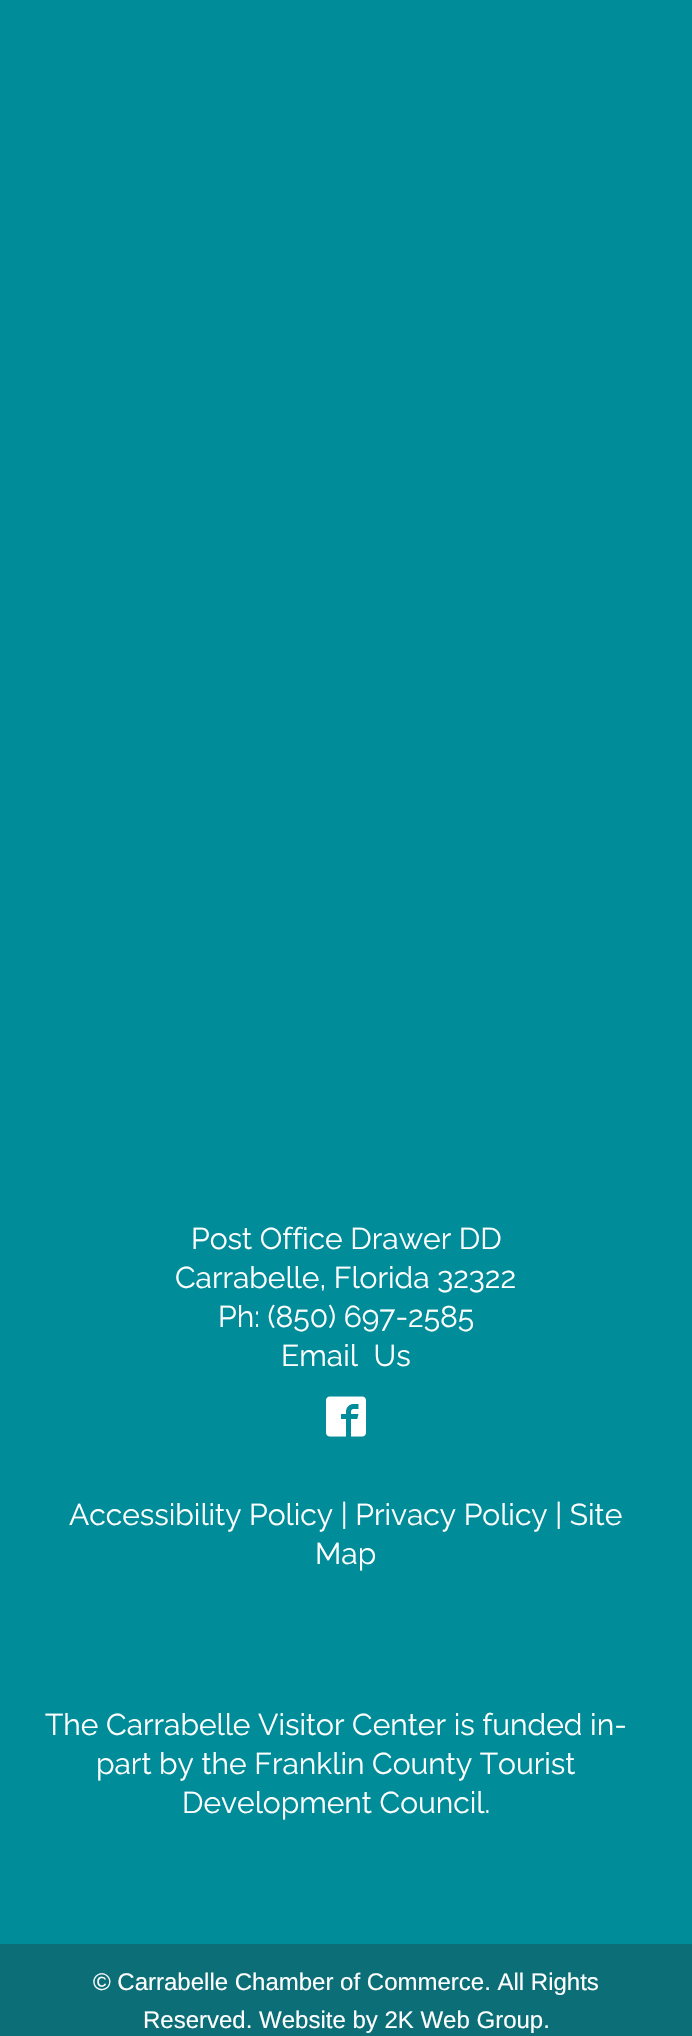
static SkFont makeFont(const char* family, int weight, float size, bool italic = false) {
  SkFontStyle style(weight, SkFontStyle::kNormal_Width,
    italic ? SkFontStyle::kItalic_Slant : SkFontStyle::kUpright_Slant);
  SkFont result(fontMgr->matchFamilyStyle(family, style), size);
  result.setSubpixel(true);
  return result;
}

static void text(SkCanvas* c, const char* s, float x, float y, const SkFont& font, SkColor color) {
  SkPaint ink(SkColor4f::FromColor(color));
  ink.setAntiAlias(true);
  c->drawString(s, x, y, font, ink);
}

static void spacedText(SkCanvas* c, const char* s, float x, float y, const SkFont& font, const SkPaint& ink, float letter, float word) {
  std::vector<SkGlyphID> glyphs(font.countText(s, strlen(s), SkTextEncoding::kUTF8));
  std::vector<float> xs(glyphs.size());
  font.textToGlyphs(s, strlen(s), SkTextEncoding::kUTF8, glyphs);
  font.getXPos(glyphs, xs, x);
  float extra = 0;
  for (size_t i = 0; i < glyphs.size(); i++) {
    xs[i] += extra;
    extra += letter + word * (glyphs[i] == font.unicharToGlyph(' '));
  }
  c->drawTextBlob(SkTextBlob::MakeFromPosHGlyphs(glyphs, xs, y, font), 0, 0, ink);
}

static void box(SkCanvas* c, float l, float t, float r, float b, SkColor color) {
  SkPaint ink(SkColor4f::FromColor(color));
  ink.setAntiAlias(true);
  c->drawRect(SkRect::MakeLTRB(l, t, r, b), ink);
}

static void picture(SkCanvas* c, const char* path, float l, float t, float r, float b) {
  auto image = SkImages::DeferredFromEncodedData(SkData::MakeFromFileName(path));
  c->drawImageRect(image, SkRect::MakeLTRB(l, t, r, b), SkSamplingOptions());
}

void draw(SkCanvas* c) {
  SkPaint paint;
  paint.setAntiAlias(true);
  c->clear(0xff018c99);
  SkFont face1 = makeFont("Raleway", 400, 30);
  text(c, "Post Office Drawer DD", 191, 1249, face1, 0xffffffff);
  text(c, "Carrabelle, Florida 32322", 175, 1288, face1, 0xffffffff);
  text(c, "Ph: (850) 697-2585", 218, 1327, face1, 0xffffffff);
  paint.setColor(0xffffffff);
  spacedText(c, "Email Us", 281, 1366, face1, paint, 0, 8);
  picture(c, "img_01.png", 326, 1396, 366, 1437);
  text(c, "Accessibility Policy | Privacy Policy | Site", 69, 1525, face1, 0xffffffff);
  text(c, "Map", 315, 1564, face1, 0xffffffff);
  text(c, "The Carrabelle Visitor Center is funded in-", 45, 1735, face1, 0xffffffff);
  text(c, "part by the Franklin County Tourist", 96, 1774, face1, 0xffffffff);
  text(c, "Development Council.", 182, 1813, face1, 0xffffffff);
  box(c, 0, 1944, 692, 2036, 0xff0c6f78);
  SkFont face2 = makeFont("Liberation Sans", 400, 24);
  text(c, "© Carrabelle Chamber of Commerce. All Rights", 93, 1990, face2, 0xffffffff);
  text(c, "Reserved. Website by 2K Web Group.", 143, 2028, face2, 0xffffffff);
}
